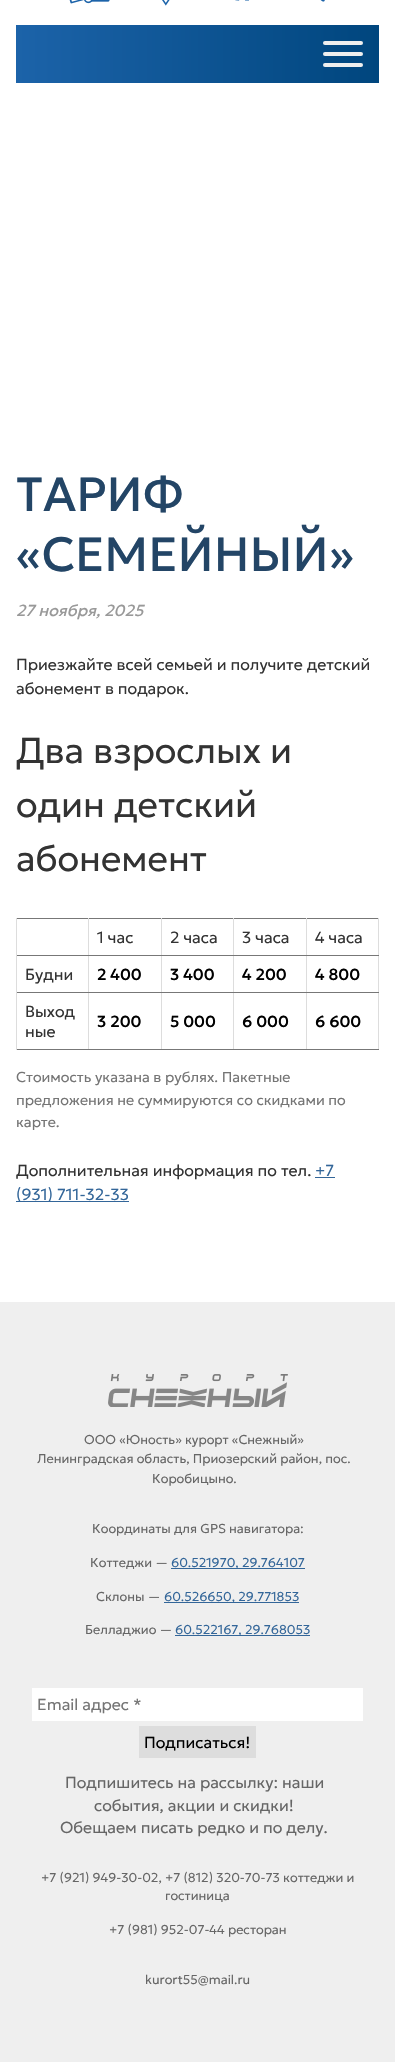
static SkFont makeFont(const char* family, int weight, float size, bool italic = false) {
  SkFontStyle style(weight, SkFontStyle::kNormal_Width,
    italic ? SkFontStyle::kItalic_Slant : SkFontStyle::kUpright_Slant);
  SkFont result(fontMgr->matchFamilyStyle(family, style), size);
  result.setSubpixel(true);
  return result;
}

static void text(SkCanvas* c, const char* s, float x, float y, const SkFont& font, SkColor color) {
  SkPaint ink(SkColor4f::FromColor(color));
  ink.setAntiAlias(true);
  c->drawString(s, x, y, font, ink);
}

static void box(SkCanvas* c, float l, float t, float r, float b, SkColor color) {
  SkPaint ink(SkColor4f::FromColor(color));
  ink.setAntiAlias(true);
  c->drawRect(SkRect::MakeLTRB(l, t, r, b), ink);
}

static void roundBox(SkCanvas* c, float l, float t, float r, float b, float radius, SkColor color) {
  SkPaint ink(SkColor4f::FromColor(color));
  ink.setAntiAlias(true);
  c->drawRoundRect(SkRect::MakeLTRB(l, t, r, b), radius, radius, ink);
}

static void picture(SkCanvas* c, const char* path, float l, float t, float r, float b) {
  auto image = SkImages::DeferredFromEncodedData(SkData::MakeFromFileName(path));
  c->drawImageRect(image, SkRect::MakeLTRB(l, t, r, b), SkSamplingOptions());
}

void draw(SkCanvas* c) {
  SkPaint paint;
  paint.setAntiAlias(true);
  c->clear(0xffffffff);
  picture(c, "img_01.png", 69, 0, 110, 4);
  picture(c, "img_02.png", 162, 0, 170, 6);
  picture(c, "img_03.png", 235, 0, 249, 1);
  picture(c, "img_04.png", 320, 0, 325, 2);
  {
    const SkColor colors[] = {0xff1c63a9, 0xff00467e};
    const float stops[] = {0, 1};
    const SkPoint ends[] = {{16, 54}, {379, 54}};
    paint.setShader(SkGradientShader::MakeLinear(ends, colors, stops, 2, SkTileMode::kClamp));
    paint.setAlpha(255);
  }
  c->drawRect(SkRect::MakeLTRB(16, 25, 379, 83), paint);
  roundBox(c, 323, 52, 363, 56, 2, 0xffefefef);
  roundBox(c, 323, 41, 363, 45, 2, 0xffefefef);
  roundBox(c, 323, 63, 363, 67, 2, 0xffefefef);
  SkFont face1 = makeFont("Geologica", 400, 48);
  text(c, "ТАРИФ", 16, 511, face1, 0xff234566);
  text(c, "«СЕМЕЙНЫЙ»", 16, 571, face1, 0xff234566);
  SkFont face2 = makeFont("Geologica", 400, 16, true);
  text(c, "27 ноября, 2025", 16, 616, face2, 0xff999999);
  SkFont face3 = makeFont("Geologica", 300, 16);
  text(c, "Приезжайте всей семьей и получите детский", 16, 670, face3, 0xff333333);
  text(c, "абонемент в подарок.", 16, 694, face3, 0xff333333);
  SkFont face4 = makeFont("Geologica", 300, 36);
  text(c, "Два взрослых и", 16, 763, face4, 0xff333333);
  text(c, "один детский", 16, 817, face4, 0xff333333);
  text(c, "абонемент", 16, 871, face4, 0xff333333);
  box(c, 16, 918, 379, 919, 0xff777777);
  box(c, 378, 955, 379, 1050, 0xffdddddd);
  box(c, 378, 918, 379, 956, 0xffdddddd);
  box(c, 306, 1049, 379, 1050, 0xff777777);
  box(c, 306, 992, 307, 1050, 0xffdddddd);
  box(c, 306, 992, 379, 993, 0xff777777);
  box(c, 306, 955, 307, 993, 0xffdddddd);
  box(c, 306, 955, 379, 956, 0xff777777);
  box(c, 306, 918, 307, 956, 0xffdddddd);
  box(c, 233, 1049, 307, 1050, 0xff777777);
  box(c, 233, 992, 234, 1050, 0xffdddddd);
  box(c, 233, 992, 307, 993, 0xff777777);
  box(c, 233, 955, 234, 993, 0xffdddddd);
  box(c, 233, 955, 307, 956, 0xff777777);
  box(c, 233, 918, 234, 956, 0xffdddddd);
  box(c, 161, 1049, 234, 1050, 0xff777777);
  box(c, 161, 992, 162, 1050, 0xffdddddd);
  box(c, 161, 992, 234, 993, 0xff777777);
  box(c, 161, 955, 162, 993, 0xffdddddd);
  box(c, 161, 955, 234, 956, 0xff777777);
  box(c, 161, 918, 162, 956, 0xffdddddd);
  box(c, 88, 1049, 162, 1050, 0xff777777);
  box(c, 88, 992, 89, 1050, 0xffdddddd);
  box(c, 88, 992, 162, 993, 0xff777777);
  box(c, 88, 955, 89, 993, 0xffdddddd);
  box(c, 88, 955, 162, 956, 0xff777777);
  box(c, 88, 918, 89, 956, 0xffdddddd);
  box(c, 16, 1049, 89, 1050, 0xff777777);
  box(c, 16, 992, 17, 1050, 0xffdddddd);
  box(c, 16, 992, 89, 993, 0xff777777);
  box(c, 16, 955, 17, 993, 0xffdddddd);
  box(c, 16, 955, 89, 956, 0xff777777);
  box(c, 16, 918, 17, 956, 0xffdddddd);
  text(c, "1 час", 97, 943, face3, 0xff333333);
  text(c, "2 часа", 170, 943, face3, 0xff333333);
  text(c, "3 часа", 242, 943, face3, 0xff333333);
  text(c, "4 часа", 315, 943, face3, 0xff333333);
  text(c, "Будни", 25, 980, face3, 0xff333333);
  SkFont face5 = makeFont("Geologica", 500, 16);
  text(c, "2 400", 97, 980, face5, 0xff000000);
  text(c, "3 400", 170, 980, face5, 0xff000000);
  text(c, "4 200", 242, 980, face5, 0xff000000);
  text(c, "4 800", 315, 980, face5, 0xff000000);
  text(c, "Выход", 25, 1017, face3, 0xff333333);
  text(c, "ные", 25, 1037, face3, 0xff333333);
  text(c, "3 200", 97, 1027, face5, 0xff000000);
  text(c, "5 000", 170, 1027, face5, 0xff000000);
  text(c, "6 000", 242, 1027, face5, 0xff000000);
  text(c, "6 600", 315, 1027, face5, 0xff000000);
  SkFont face6 = makeFont("Geologica", 300, 14.4f);
  text(c, "Стоимость указана в рублях. Пакетные", 16, 1082, face6, 0xff757575);
  text(c, "предложения не суммируются со скидками по", 16, 1105, face6, 0xff757575);
  text(c, "карте.", 16, 1127, face6, 0xff757575);
  text(c, "Дополнительная информация по тел.", 16, 1176, face3, 0xff333333);
  text(c, "+7", 315, 1176, face3, 0xff336699);
  box(c, 315, 1177, 335, 1178, 0xff336699);
  box(c, 16, 1201, 129, 1202, 0xff336699);
  text(c, "(931) 711-32-33", 16, 1200, face3, 0xff336699);
  box(c, 0, 1302, 395, 2062, 0xffefefef);
  picture(c, "img_05.png", 108, 1374, 288, 1407);
  SkFont face7 = makeFont("Geologica", 300, 12.8f);
  text(c, "ООО «Юность» курорт «Снежный»", 84, 1444, face7, 0xff666666);
  text(c, "Ленинградская область, Приозерский район, пос.", 37, 1463, face7, 0xff666666);
  text(c, "Коробицыно.", 152, 1483, face7, 0xff666666);
  text(c, "Координаты для GPS навигатора:", 92, 1533, face7, 0xff666666);
  text(c, "Коттеджи —", 90, 1567, face7, 0xff666666);
  box(c, 171, 1568, 305, 1569, 0xff336699);
  text(c, "60.521970, 29.764107", 171, 1567, face7, 0xff336699);
  text(c, "Склоны —", 96, 1601, face7, 0xff666666);
  box(c, 164, 1602, 299, 1603, 0xff336699);
  text(c, "60.526650, 29.771853", 164, 1601, face7, 0xff336699);
  text(c, "Белладжио —", 85, 1634, face7, 0xff666666);
  box(c, 175, 1635, 310, 1636, 0xff336699);
  text(c, "60.522167, 29.768053", 175, 1634, face7, 0xff336699);
  box(c, 32, 1688, 363, 1721, 0xffffffff);
  text(c, "Email адрес *", 37, 1710, face3, 0xff757575);
  box(c, 139, 1726, 256, 1758, 0xffdddddd);
  text(c, "Подписаться!", 144, 1748, face3, 0xff000000);
  text(c, "Подпишитесь на рассылку: наши", 65, 1788, face3, 0xff666666);
  text(c, "события, акции и скидки!", 94, 1811, face3, 0xff666666);
  text(c, "Обещаем писать редко и по делу.", 60, 1833, face3, 0xff666666);
  text(c, "+7 (921) 949-30-02, +7 (812) 320-70-73 коттеджи и", 41, 1882, face7, 0xff666666);
  text(c, "гостиница", 165, 1900, face7, 0xff666666);
  text(c, "+7 (981) 952-07-44 ресторан", 109, 1934, face7, 0xff666666);
  text(c, "kurort55@mail.ru", 145, 1984, face7, 0xff666666);
}
